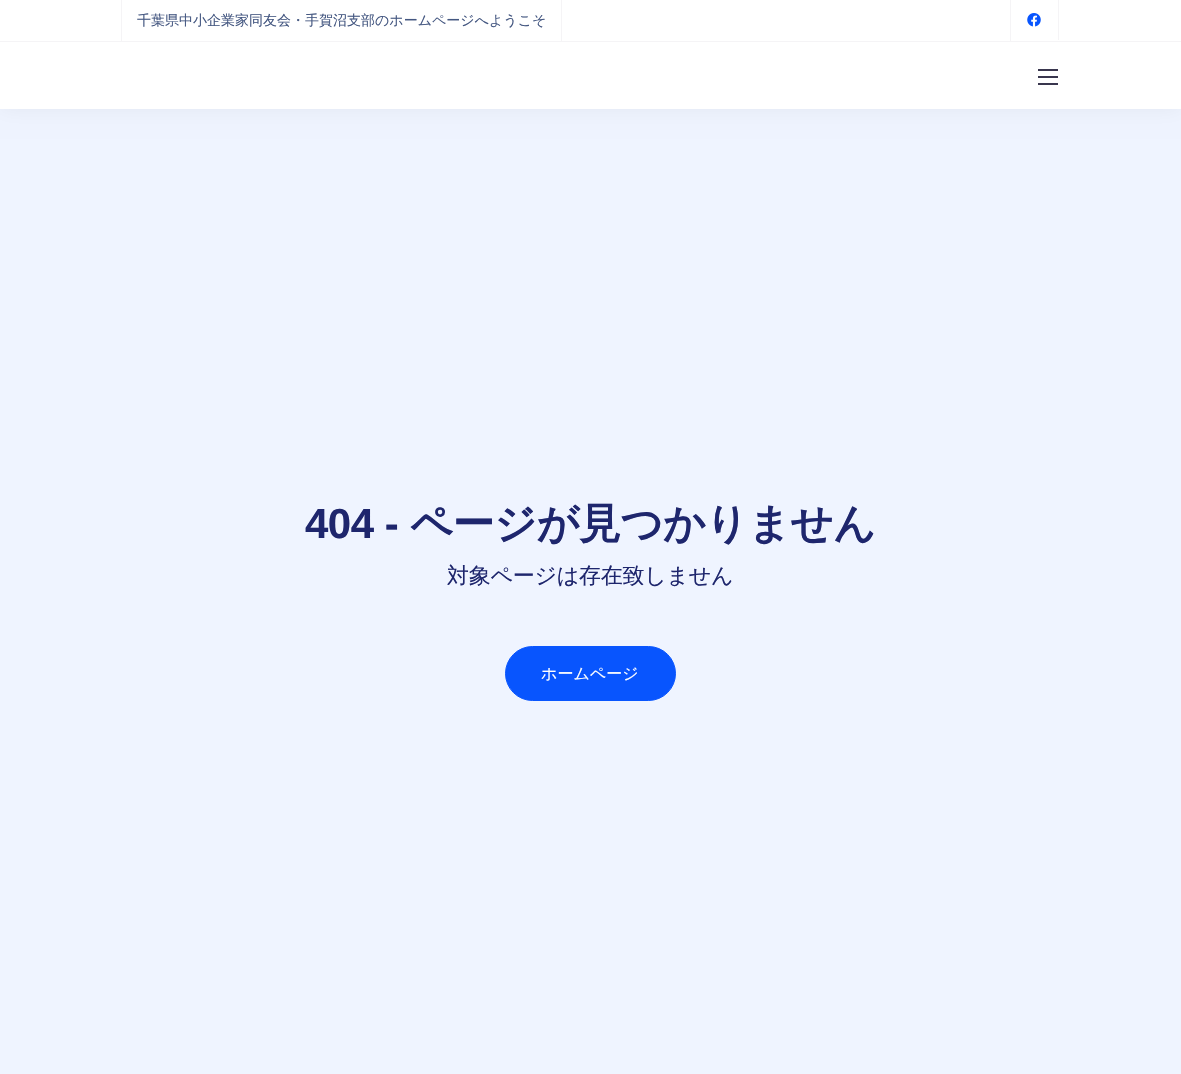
static SkFont makeFont(const char* family, int weight, float size, bool italic = false) {
  SkFontStyle style(weight, SkFontStyle::kNormal_Width,
    italic ? SkFontStyle::kItalic_Slant : SkFontStyle::kUpright_Slant);
  SkFont result(fontMgr->matchFamilyStyle(family, style), size);
  result.setSubpixel(true);
  return result;
}

static void text(SkCanvas* c, const char* s, float x, float y, const SkFont& font, SkColor color) {
  SkPaint ink(SkColor4f::FromColor(color));
  ink.setAntiAlias(true);
  c->drawString(s, x, y, font, ink);
}

static void spacedText(SkCanvas* c, const char* s, float x, float y, const SkFont& font, const SkPaint& ink, float letter, float word) {
  std::vector<SkGlyphID> glyphs(font.countText(s, strlen(s), SkTextEncoding::kUTF8));
  std::vector<float> xs(glyphs.size());
  font.textToGlyphs(s, strlen(s), SkTextEncoding::kUTF8, glyphs);
  font.getXPos(glyphs, xs, x);
  float extra = 0;
  for (size_t i = 0; i < glyphs.size(); i++) {
    xs[i] += extra;
    extra += letter + word * (glyphs[i] == font.unicharToGlyph(' '));
  }
  c->drawTextBlob(SkTextBlob::MakeFromPosHGlyphs(glyphs, xs, y, font), 0, 0, ink);
}

static void box(SkCanvas* c, float l, float t, float r, float b, SkColor color) {
  SkPaint ink(SkColor4f::FromColor(color));
  ink.setAntiAlias(true);
  c->drawRect(SkRect::MakeLTRB(l, t, r, b), ink);
}

static void picture(SkCanvas* c, const char* path, float l, float t, float r, float b) {
  auto image = SkImages::DeferredFromEncodedData(SkData::MakeFromFileName(path));
  c->drawImageRect(image, SkRect::MakeLTRB(l, t, r, b), SkSamplingOptions());
}

void draw(SkCanvas* c) {
  SkPaint paint;
  paint.setAntiAlias(true);
  c->clear(0xffeff4ff);
  paint.setColor(0x0d000000);
  paint.setMaskFilter(SkMaskFilter::MakeBlur(kNormal_SkBlurStyle, 10));
  c->drawRect(SkRect::MakeLTRB(0, 0, 1181, 109), paint);
  paint.setMaskFilter(nullptr);
  box(c, 0, 0, 1181, 41, 0xffffffff);
  box(c, 0, 41, 1181, 42, 0xfff5f4f6);
  box(c, 561, 0, 562, 41, 0xfff5f4f6);
  box(c, 121, 0, 122, 41, 0xfff5f4f6);
  SkFont face1 = makeFont("WenQuanYi Zen Hei", 500, 14);
  text(c, "千葉県中小企業家同友会・手賀沼支部のホームページへようこそ", 137, 25, face1, 0xff445781);
  box(c, 1010, 0, 1011, 41, 0xfff5f4f6);
  box(c, 1058, 0, 1059, 40, 0xfff5f4f6);
  picture(c, "img_01.png", 1027, 13, 1041, 27);
  box(c, 0, 42, 1181, 109, 0xffffffff);
  box(c, 1038, 83, 1058, 85, 0xff39364e);
  box(c, 1038, 69, 1058, 71, 0xff39364e);
  box(c, 1038, 76, 1058, 78, 0xff39364e);
  SkFont face2 = makeFont("Liberation Sans", 700, 42);
  paint.setColor(0xff1e266d);
  spacedText(c, "404 -", 305, 538, face2, paint, -0.5f, 0);
  SkFont face3 = makeFont("WenQuanYi Zen Hei", 700, 42);
  spacedText(c, "ページが見つかりません", 410, 538, face3, paint, -0.5f, 0);
  SkFont face4 = makeFont("WenQuanYi Zen Hei", 500, 22);
  spacedText(c, "対象ページは存在致しません", 447, 583, face4, paint, -0.25f, 0);
  paint.setColor(0xff0855fe);
  c->drawRoundRect(SkRect::MakeLTRB(505.5f, 646.5f, 675.5f, 700.5f), 27, 27, paint);
  paint.setStyle(SkPaint::kStroke_Style);
  paint.setStrokeWidth(1);
  c->drawRoundRect(SkRect::MakeLTRB(505.5f, 646.5f, 675.5f, 700.5f), 27, 27, paint);
  SkFont face5 = makeFont("WenQuanYi Zen Hei", 500, 16);
  text(c, "ホームページ", 541, 679, face5, 0xffffffff);
}
